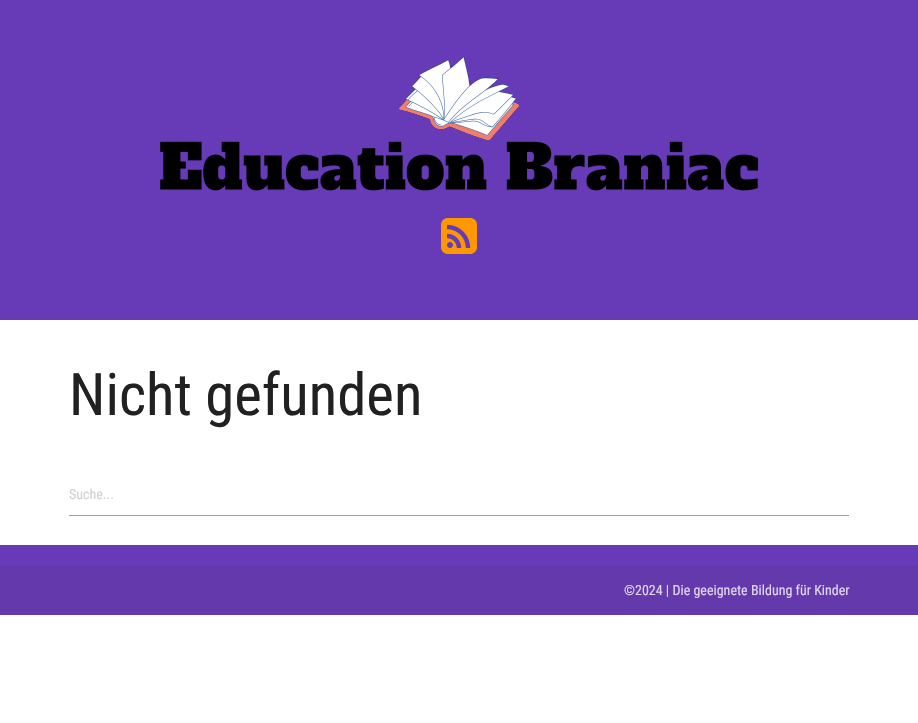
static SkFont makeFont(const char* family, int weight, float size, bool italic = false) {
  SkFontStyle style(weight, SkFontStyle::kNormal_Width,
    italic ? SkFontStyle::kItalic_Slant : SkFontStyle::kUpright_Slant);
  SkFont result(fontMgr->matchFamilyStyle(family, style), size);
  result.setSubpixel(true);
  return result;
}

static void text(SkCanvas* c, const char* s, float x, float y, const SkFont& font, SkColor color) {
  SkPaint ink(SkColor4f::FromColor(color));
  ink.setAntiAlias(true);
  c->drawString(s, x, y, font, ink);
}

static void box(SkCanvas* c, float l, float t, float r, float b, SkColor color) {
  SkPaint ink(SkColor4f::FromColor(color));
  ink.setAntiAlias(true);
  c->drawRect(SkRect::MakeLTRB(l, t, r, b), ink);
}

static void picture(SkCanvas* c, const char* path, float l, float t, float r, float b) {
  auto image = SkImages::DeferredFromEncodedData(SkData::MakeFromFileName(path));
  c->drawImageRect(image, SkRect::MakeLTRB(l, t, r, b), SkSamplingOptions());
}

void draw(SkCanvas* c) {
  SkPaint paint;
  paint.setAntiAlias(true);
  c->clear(0xffffffff);
  box(c, 0, 0, 918, 320, 0xff673ab7);
  picture(c, "img_01.png", 160, 56, 759, 191);
  picture(c, "img_02.png", 441, 218, 477, 254);
  SkFont face1 = makeFont("Roboto Condensed", 400, 58.75f);
  text(c, "Nicht gefunden", 69, 415, face1, 0xff212121);
  box(c, 69, 515, 849, 516, 0xff9e9e9e);
  SkFont face2 = makeFont("Roboto Condensed", 400, 14);
  text(c, "Suche...", 69, 499, face2, 0xffd1d1d1);
  box(c, 0, 545, 918, 565, 0xff673ab7);
  box(c, 0, 565, 918, 615, 0xff6339ac);
  text(c, "©2024 | Die geeignete Bildung für Kinder", 624, 595, face2, 0xffe0d7ee);
}
